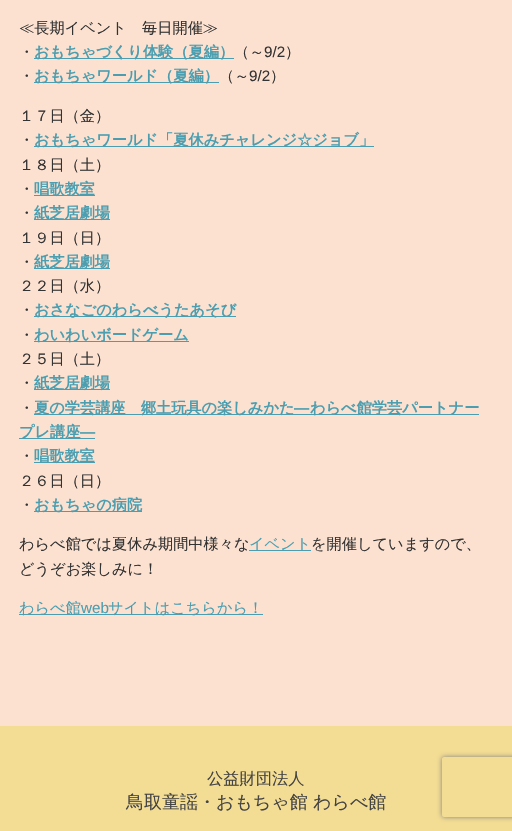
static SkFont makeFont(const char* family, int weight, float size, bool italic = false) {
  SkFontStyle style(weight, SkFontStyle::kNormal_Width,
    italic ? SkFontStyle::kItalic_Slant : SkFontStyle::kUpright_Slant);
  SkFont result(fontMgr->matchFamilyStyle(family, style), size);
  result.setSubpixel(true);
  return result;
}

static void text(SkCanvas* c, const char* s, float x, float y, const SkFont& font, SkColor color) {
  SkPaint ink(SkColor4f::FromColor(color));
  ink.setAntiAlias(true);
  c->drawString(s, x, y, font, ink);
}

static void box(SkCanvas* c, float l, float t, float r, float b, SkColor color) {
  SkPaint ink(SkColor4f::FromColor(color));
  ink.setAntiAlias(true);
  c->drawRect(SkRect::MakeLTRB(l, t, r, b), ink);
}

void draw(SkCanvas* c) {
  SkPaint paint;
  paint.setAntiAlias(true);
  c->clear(0xfffce1d0);
  SkFont face1 = makeFont("WenQuanYi Zen Hei", 500, 15.2f);
  text(c, "≪長期イベント　毎日開催≫", 19, 33, face1, 0xff333333);
  text(c, "・", 19, 57, face1, 0xff333333);
  box(c, 34, 58, 234, 59, 0xff4a9eb0);
  SkFont face2 = makeFont("WenQuanYi Zen Hei", 700, 15.2f);
  text(c, "おもちゃづくり体験（夏編）", 34, 57, face2, 0xff4a9eb0);
  text(c, "（～", 234, 57, face1, 0xff333333);
  SkFont face3 = makeFont("Liberation Sans", 400, 15.2f);
  text(c, "9/2", 264, 57, face3, 0xff333333);
  text(c, "）", 285, 57, face1, 0xff333333);
  text(c, "・", 19, 81, face1, 0xff333333);
  box(c, 34, 82, 219, 83, 0xff4a9eb0);
  text(c, "おもちゃワールド（夏編）", 34, 81, face2, 0xff4a9eb0);
  text(c, "（～", 219, 81, face1, 0xff333333);
  text(c, "9/2", 249, 81, face3, 0xff333333);
  text(c, "）", 270, 81, face1, 0xff333333);
  text(c, "１７日（金）", 19, 121, face1, 0xff333333);
  text(c, "・", 19, 145, face1, 0xff333333);
  box(c, 34, 146, 374, 147, 0xff4a9eb0);
  text(c, "おもちゃワールド「夏休みチャレンジ☆ジョブ」", 34, 145, face2, 0xff4a9eb0);
  text(c, "１８日（土）", 19, 170, face1, 0xff333333);
  text(c, "・", 19, 194, face1, 0xff333333);
  box(c, 34, 195, 95, 196, 0xff4a9eb0);
  text(c, "唱歌教室", 34, 194, face2, 0xff4a9eb0);
  text(c, "・", 19, 218, face1, 0xff333333);
  box(c, 34, 219, 110, 220, 0xff4a9eb0);
  text(c, "紙芝居劇場", 34, 218, face2, 0xff4a9eb0);
  text(c, "１９日（日）", 19, 243, face1, 0xff333333);
  text(c, "・", 19, 267, face1, 0xff333333);
  box(c, 34, 268, 110, 269, 0xff4a9eb0);
  text(c, "紙芝居劇場", 34, 267, face2, 0xff4a9eb0);
  text(c, "２２日（水）", 19, 291, face1, 0xff333333);
  text(c, "・", 19, 315, face1, 0xff333333);
  box(c, 34, 316, 236, 317, 0xff4a9eb0);
  text(c, "おさなごのわらべうたあそび", 34, 315, face2, 0xff4a9eb0);
  text(c, "・", 19, 340, face1, 0xff333333);
  box(c, 34, 341, 189, 342, 0xff4a9eb0);
  text(c, "わいわいボードゲーム", 34, 340, face2, 0xff4a9eb0);
  text(c, "２５日（土）", 19, 364, face1, 0xff333333);
  text(c, "・", 19, 388, face1, 0xff333333);
  box(c, 34, 389, 110, 390, 0xff4a9eb0);
  text(c, "紙芝居劇場", 34, 388, face2, 0xff4a9eb0);
  text(c, "・", 19, 413, face1, 0xff333333);
  box(c, 34, 414, 479, 415, 0xff4a9eb0);
  text(c, "夏の学芸講座　郷土玩具の楽しみかた", 34, 413, face2, 0xff4a9eb0);
  SkFont face4 = makeFont("Liberation Sans", 700, 15.2f);
  text(c, "―", 294, 413, face4, 0xff4a9eb0);
  text(c, "わらべ館学芸パートナー", 310, 413, face2, 0xff4a9eb0);
  box(c, 19, 438, 95, 439, 0xff4a9eb0);
  text(c, "プレ講座", 19, 437, face2, 0xff4a9eb0);
  text(c, "―", 80, 437, face4, 0xff4a9eb0);
  text(c, "・", 19, 461, face1, 0xff333333);
  box(c, 34, 462, 95, 463, 0xff4a9eb0);
  text(c, "唱歌教室", 34, 461, face2, 0xff4a9eb0);
  text(c, "２６日（日）", 19, 486, face1, 0xff333333);
  text(c, "・", 19, 510, face1, 0xff333333);
  box(c, 34, 511, 142, 512, 0xff4a9eb0);
  text(c, "おもちゃの病院", 34, 510, face2, 0xff4a9eb0);
  text(c, "わらべ館では夏休み期間中様々な", 19, 549, face1, 0xff333333);
  box(c, 249, 550, 311, 551, 0xff4a9eb0);
  text(c, "イベント", 249, 549, face1, 0xff4a9eb0);
  text(c, "を開催していますので、", 311, 549, face1, 0xff333333);
  text(c, "どうぞお楽しみに！", 19, 574, face1, 0xff333333);
  box(c, 19, 614, 263, 615, 0xff4a9eb0);
  text(c, "わらべ館", 19, 613, face1, 0xff4a9eb0);
  text(c, "web", 81, 613, face3, 0xff4a9eb0);
  text(c, "サイトはこちらから！", 108, 613, face1, 0xff4a9eb0);
  box(c, 0, 726, 512, 831, 0xfff3dc93);
  SkFont face5 = makeFont("WenQuanYi Zen Hei", 500, 16.25f);
  text(c, "公益財団法人", 207, 784, face5, 0xff444444);
  SkFont face6 = makeFont("WenQuanYi Zen Hei", 500, 18);
  text(c, "鳥取童謡・おもちゃ館 わらべ館", 126, 808, face6, 0xff444444);
  c->save();
  c->clipPath(SkPathBuilder(SkPathFillType::kEvenOdd).moveTo(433, 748).lineTo(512, 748).lineTo(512, 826).lineTo(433, 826).close().moveTo(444, 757).lineTo(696, 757).cubicTo(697, 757, 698, 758, 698, 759).lineTo(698, 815).cubicTo(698, 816, 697, 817, 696, 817).lineTo(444, 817).cubicTo(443, 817, 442, 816, 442, 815).lineTo(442, 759).cubicTo(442, 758, 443, 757, 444, 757).close().detach(), true);
  paint.setColor(0xff808080);
  paint.setMaskFilter(SkMaskFilter::MakeBlur(kNormal_SkBlurStyle, 2.5f));
  c->drawRoundRect(SkRect::MakeLTRB(442, 757, 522, 817), 2, 2, paint);
  paint.setMaskFilter(nullptr);
  c->restore();
}
